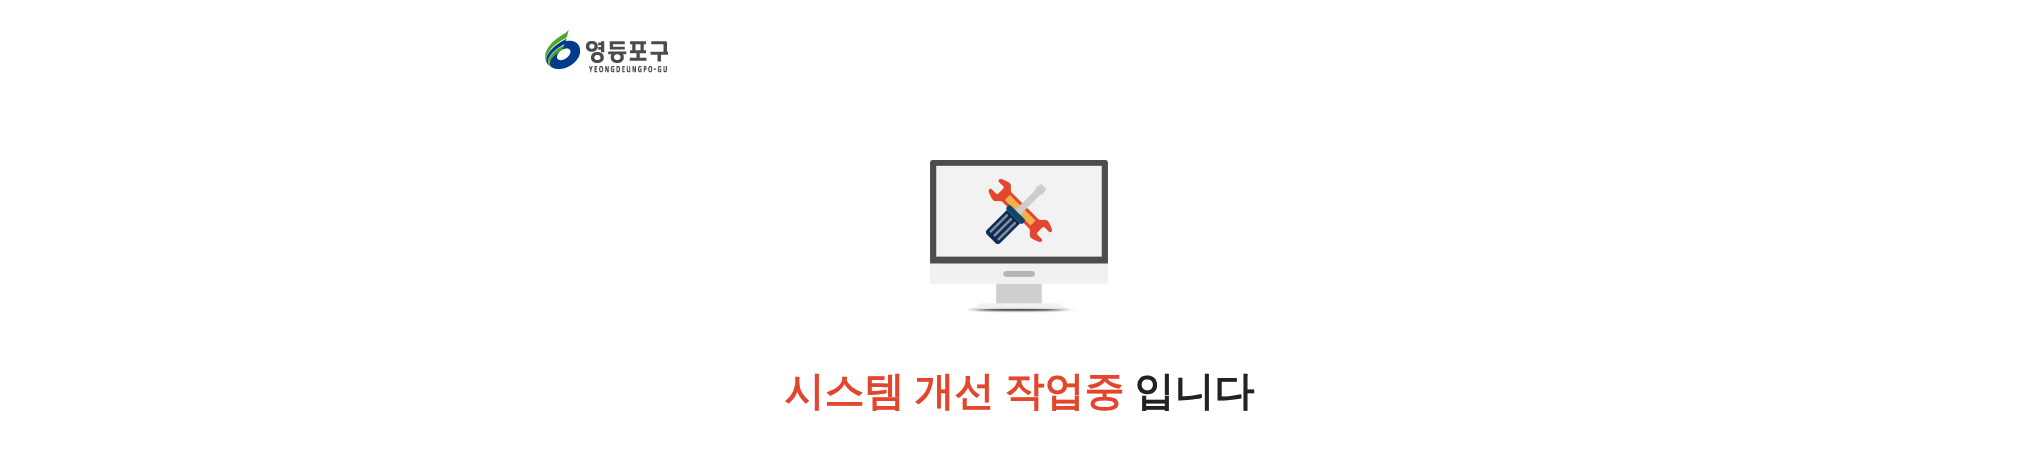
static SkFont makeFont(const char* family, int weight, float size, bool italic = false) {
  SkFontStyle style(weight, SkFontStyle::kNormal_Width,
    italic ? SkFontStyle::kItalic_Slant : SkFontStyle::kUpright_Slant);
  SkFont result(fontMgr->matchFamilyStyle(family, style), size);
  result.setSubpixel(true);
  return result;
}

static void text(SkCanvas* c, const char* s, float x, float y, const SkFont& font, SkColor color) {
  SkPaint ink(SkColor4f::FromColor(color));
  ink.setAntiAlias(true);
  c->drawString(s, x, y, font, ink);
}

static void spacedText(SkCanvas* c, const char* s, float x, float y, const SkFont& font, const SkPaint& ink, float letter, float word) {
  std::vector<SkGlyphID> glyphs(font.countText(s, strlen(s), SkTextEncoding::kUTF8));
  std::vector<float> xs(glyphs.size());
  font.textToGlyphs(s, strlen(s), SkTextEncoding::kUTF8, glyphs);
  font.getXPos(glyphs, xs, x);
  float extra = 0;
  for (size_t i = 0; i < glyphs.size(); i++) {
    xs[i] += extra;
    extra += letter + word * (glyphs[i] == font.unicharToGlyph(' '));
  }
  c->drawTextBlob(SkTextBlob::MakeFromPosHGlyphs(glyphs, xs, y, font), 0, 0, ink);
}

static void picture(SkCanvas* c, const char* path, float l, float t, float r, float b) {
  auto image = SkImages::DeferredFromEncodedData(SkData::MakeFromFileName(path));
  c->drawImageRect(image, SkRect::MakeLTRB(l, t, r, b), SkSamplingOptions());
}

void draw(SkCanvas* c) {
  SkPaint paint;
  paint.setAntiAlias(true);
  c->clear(0xffffffff);
  picture(c, "img_01.png", 544, 30, 668, 73);
  picture(c, "img_02.png", 930, 160, 1108, 313);
  SkFont face1 = makeFont("WenQuanYi Zen Hei", 700, 40);
  paint.setColor(0xffe2472d);
  spacedText(c, "시스템 개선 작업중", 784, 405, face1, paint, 0, -2);
  text(c, "입니다", 1134, 405, face1, 0xff222222);
}
